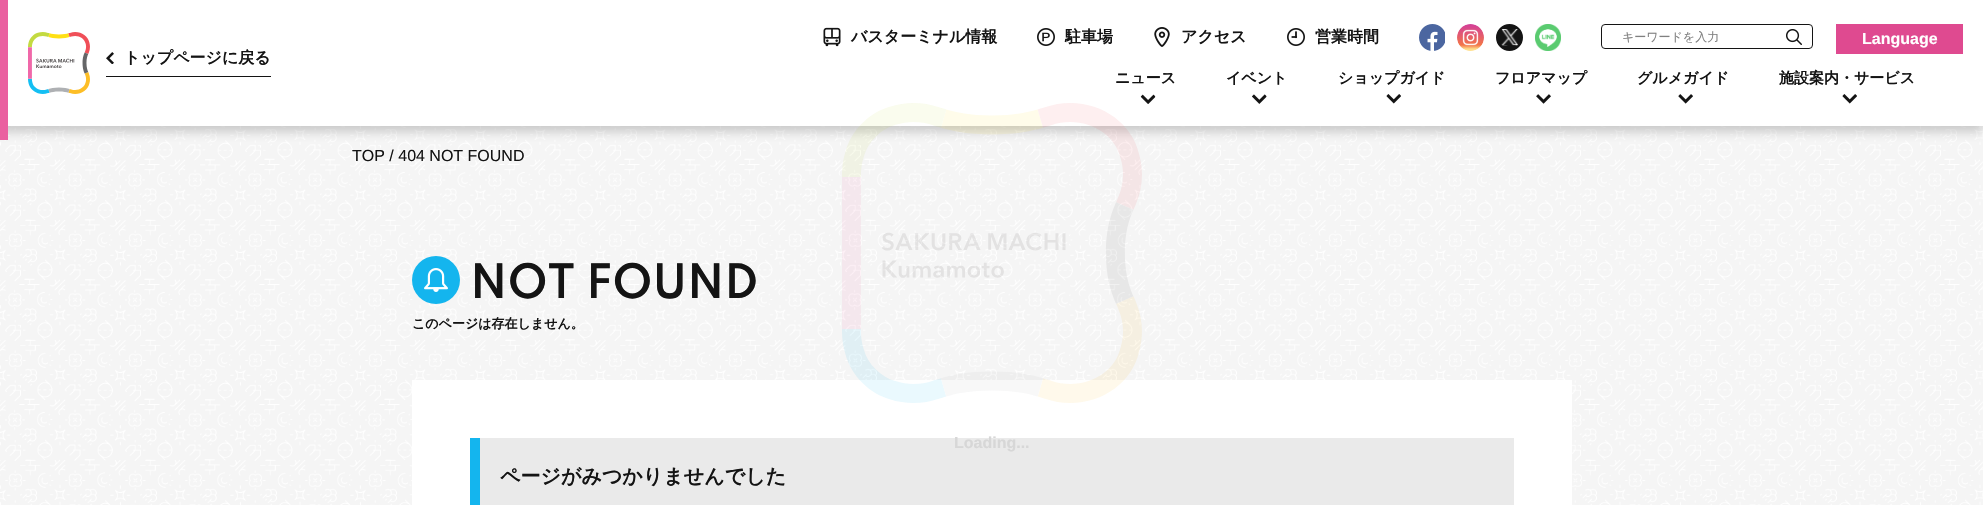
static SkFont makeFont(const char* family, int weight, float size, bool italic = false) {
  SkFontStyle style(weight, SkFontStyle::kNormal_Width,
    italic ? SkFontStyle::kItalic_Slant : SkFontStyle::kUpright_Slant);
  SkFont result(fontMgr->matchFamilyStyle(family, style), size);
  result.setSubpixel(true);
  return result;
}

static void text(SkCanvas* c, const char* s, float x, float y, const SkFont& font, SkColor color) {
  SkPaint ink(SkColor4f::FromColor(color));
  ink.setAntiAlias(true);
  c->drawString(s, x, y, font, ink);
}

static void box(SkCanvas* c, float l, float t, float r, float b, SkColor color) {
  SkPaint ink(SkColor4f::FromColor(color));
  ink.setAntiAlias(true);
  c->drawRect(SkRect::MakeLTRB(l, t, r, b), ink);
}

static void picture(SkCanvas* c, const char* path, float l, float t, float r, float b) {
  auto image = SkImages::DeferredFromEncodedData(SkData::MakeFromFileName(path));
  c->drawImageRect(image, SkRect::MakeLTRB(l, t, r, b), SkSamplingOptions());
}

void draw(SkCanvas* c) {
  SkPaint paint;
  paint.setAntiAlias(true);
  c->clear(0xfff5f5f5);
  picture(c, "img_18.png", 0, 126, 1983, 505);
  paint.setColor(0x809d9d9d);
  paint.setMaskFilter(SkMaskFilter::MakeBlur(kNormal_SkBlurStyle, 5));
  c->drawRect(SkRect::MakeLTRB(0, 6, 1983, 132), paint);
  paint.setMaskFilter(nullptr);
  box(c, 0, 0, 8, 140, 0xffea60a0);
  box(c, 8, 0, 1983, 126, 0xffffffff);
  picture(c, "img_01.png", 28, 32, 90, 94);
  box(c, 106, 76, 271, 77, 0xff141414);
  picture(c, "img_02.png", 106, 52, 114, 64);
  SkFont face1 = makeFont("WenQuanYi Zen Hei", 700, 16);
  text(c, "トップページに戻る", 124, 63, face1, 0xff141414);
  picture(c, "img_03.png", 823, 27, 841, 47);
  text(c, "バスターミナル情報", 851, 42, face1, 0xff141414);
  picture(c, "img_04.png", 1037, 28, 1055, 46);
  text(c, "駐車場", 1065, 42, face1, 0xff141414);
  picture(c, "img_05.png", 1154, 27, 1170, 47);
  text(c, "アクセス", 1181, 42, face1, 0xff141414);
  picture(c, "img_06.png", 1287, 28, 1305, 46);
  text(c, "営業時間", 1315, 42, face1, 0xff141414);
  picture(c, "img_07.png", 1419, 24, 1445, 51);
  picture(c, "img_08.png", 1457, 24, 1484, 51);
  picture(c, "img_09.png", 1496, 24, 1523, 51);
  picture(c, "img_10.png", 1535, 24, 1561, 51);
  paint.setStyle(SkPaint::kStroke_Style);
  paint.setStrokeWidth(1);
  paint.setColor(0xff141414);
  c->drawRoundRect(SkRect::MakeLTRB(1601.5f, 24.5f, 1812.5f, 48.5f), 3.5f, 3.5f, paint);
  SkFont face2 = makeFont("WenQuanYi Zen Hei", 500, 12);
  text(c, "キーワードを入力", 1622, 41, face2, 0xff808080);
  picture(c, "img_11.png", 1786, 29, 1802, 45);
  box(c, 1836, 24, 1963, 54, 0xffdf4a90);
  SkFont face3 = makeFont("Liberation Sans", 700, 16);
  text(c, "Language", 1862, 44, face3, 0xffffffff);
  SkFont face4 = makeFont("WenQuanYi Zen Hei", 700, 15);
  text(c, "ニュース", 1115, 83, face4, 0xff141414);
  picture(c, "img_12.png", 1140, 94, 1156, 104);
  text(c, "イベント", 1226, 83, face4, 0xff141414);
  picture(c, "img_13.png", 1252, 94, 1267, 104);
  text(c, "ショップガイド", 1338, 83, face4, 0xff141414);
  picture(c, "img_14.png", 1386, 94, 1401, 104);
  text(c, "フロアマップ", 1495, 83, face4, 0xff141414);
  picture(c, "img_15.png", 1536, 94, 1551, 104);
  text(c, "グルメガイド", 1637, 83, face4, 0xff141414);
  picture(c, "img_16.png", 1678, 94, 1693, 104);
  text(c, "施設案内・サービス", 1779, 83, face4, 0xff141414);
  picture(c, "img_17.png", 1842, 94, 1857, 104);
  SkFont face5 = makeFont("Liberation Sans", 400, 16);
  text(c, "TOP / 404 NOT FOUND", 352, 161, face5, 0xff141414);
  paint.setStyle(SkPaint::kFill_Style);
  paint.setColor(0xff14b5ee);
  c->drawCircle(436, 280, 24, paint);
  picture(c, "img_19.png", 424, 268, 448, 292);
  SkFont face6 = makeFont("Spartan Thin", 100, 42);
  text(c, "NOT FOUND", 470, 298, face6, 0xff141414);
  SkFont face7 = makeFont("WenQuanYi Zen Hei", 700, 13);
  text(c, "このページは存在しません。", 412, 328, face7, 0xff141414);
  box(c, 412, 380, 1572, 505, 0xffffffff);
  box(c, 480, 438, 1514, 505, 0xffeaeaea);
  box(c, 470, 438, 480, 505, 0xff14b5ee);
  SkFont face8 = makeFont("WenQuanYi Zen Hei", 700, 20);
  text(c, "ページがみつかりませんでした", 500, 483, face8, 0xff141414);
  picture(c, "img_20.png", 842, 103, 1142, 403);
  text(c, "Loading...", 954, 448, face3, 0xffd7d7d7);
}
